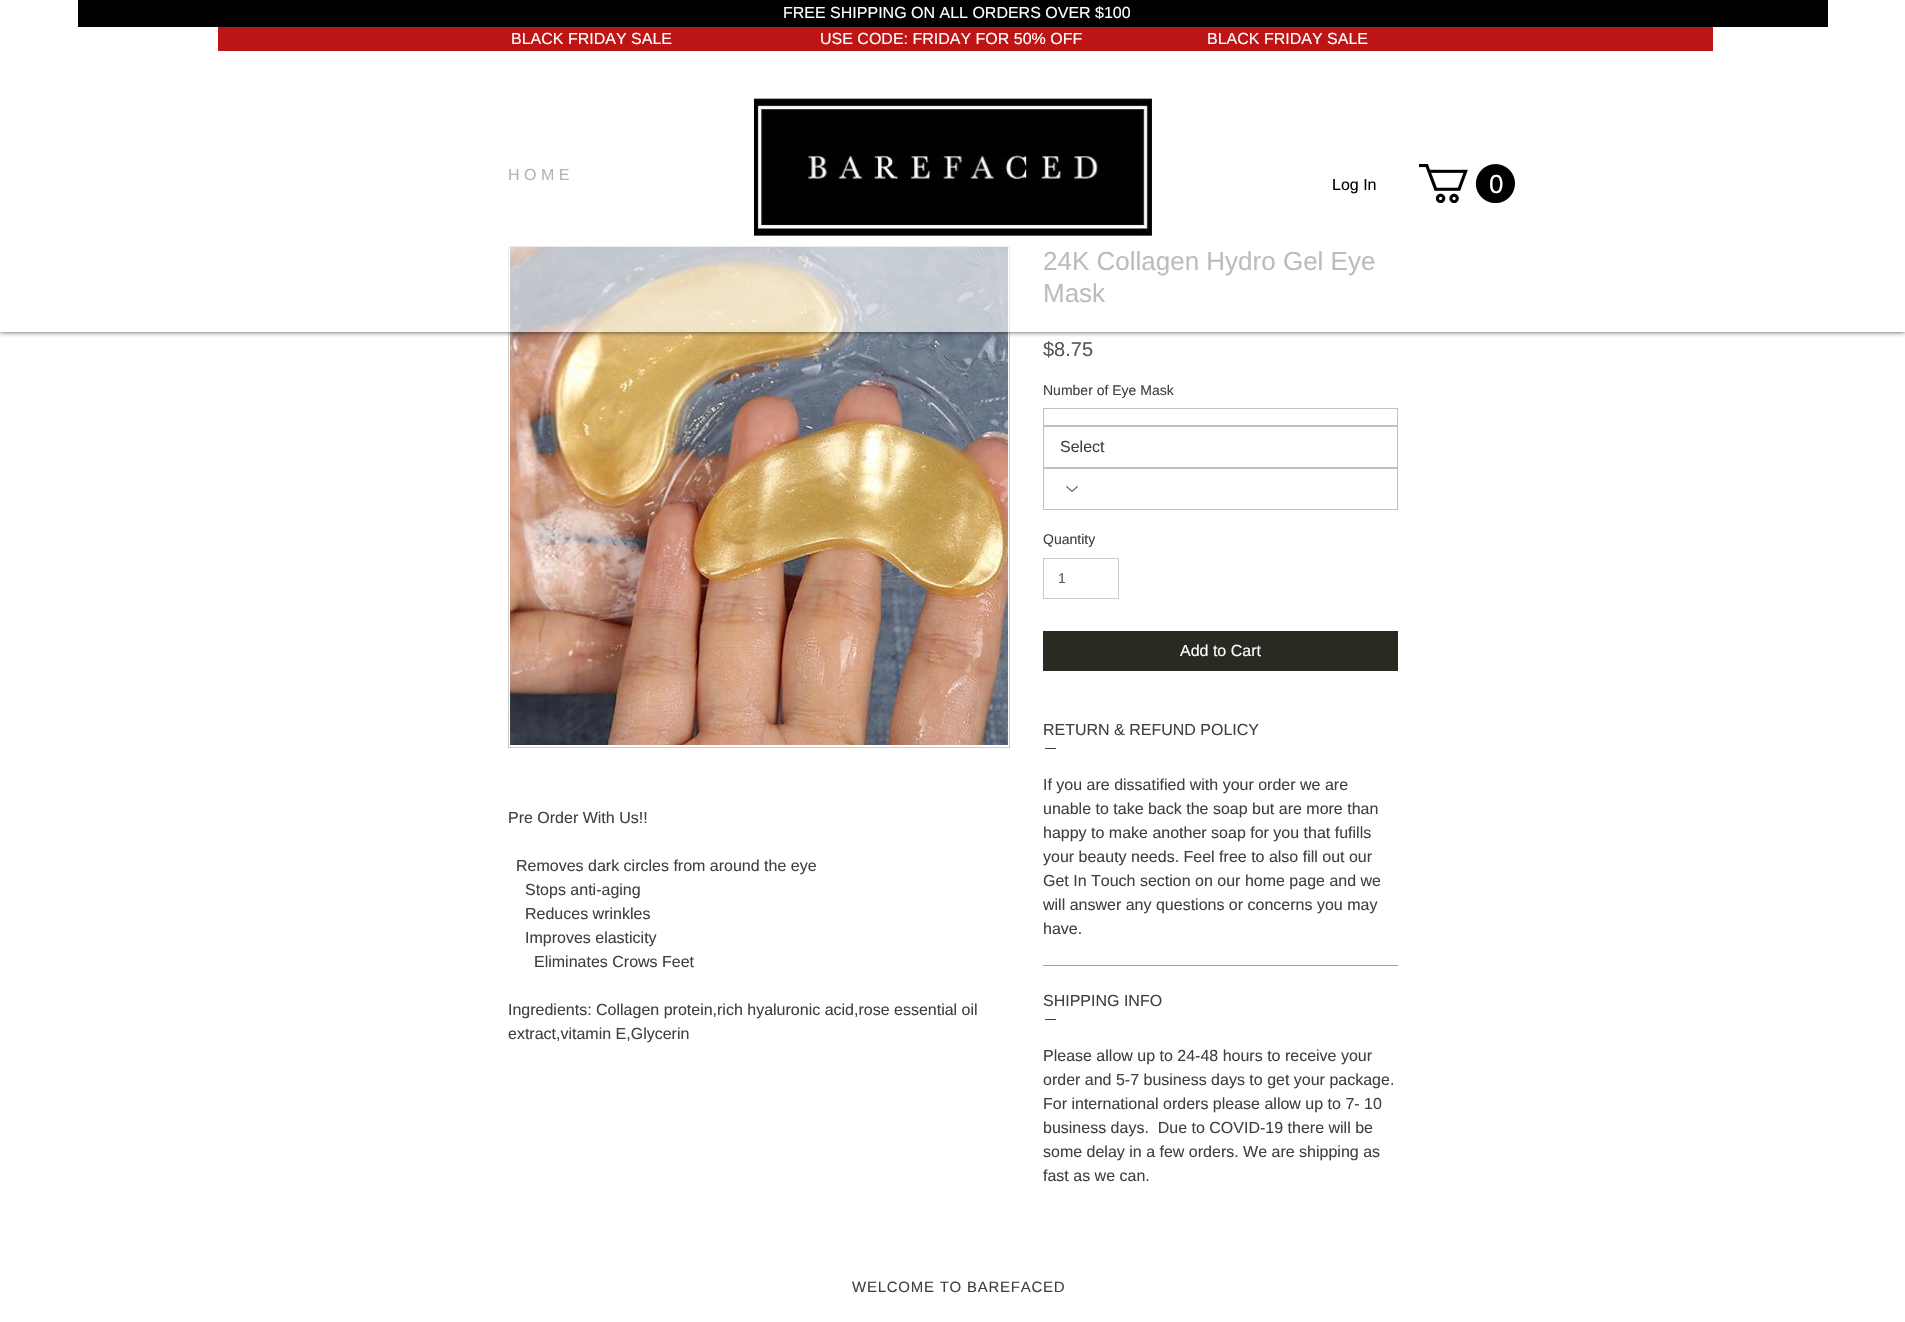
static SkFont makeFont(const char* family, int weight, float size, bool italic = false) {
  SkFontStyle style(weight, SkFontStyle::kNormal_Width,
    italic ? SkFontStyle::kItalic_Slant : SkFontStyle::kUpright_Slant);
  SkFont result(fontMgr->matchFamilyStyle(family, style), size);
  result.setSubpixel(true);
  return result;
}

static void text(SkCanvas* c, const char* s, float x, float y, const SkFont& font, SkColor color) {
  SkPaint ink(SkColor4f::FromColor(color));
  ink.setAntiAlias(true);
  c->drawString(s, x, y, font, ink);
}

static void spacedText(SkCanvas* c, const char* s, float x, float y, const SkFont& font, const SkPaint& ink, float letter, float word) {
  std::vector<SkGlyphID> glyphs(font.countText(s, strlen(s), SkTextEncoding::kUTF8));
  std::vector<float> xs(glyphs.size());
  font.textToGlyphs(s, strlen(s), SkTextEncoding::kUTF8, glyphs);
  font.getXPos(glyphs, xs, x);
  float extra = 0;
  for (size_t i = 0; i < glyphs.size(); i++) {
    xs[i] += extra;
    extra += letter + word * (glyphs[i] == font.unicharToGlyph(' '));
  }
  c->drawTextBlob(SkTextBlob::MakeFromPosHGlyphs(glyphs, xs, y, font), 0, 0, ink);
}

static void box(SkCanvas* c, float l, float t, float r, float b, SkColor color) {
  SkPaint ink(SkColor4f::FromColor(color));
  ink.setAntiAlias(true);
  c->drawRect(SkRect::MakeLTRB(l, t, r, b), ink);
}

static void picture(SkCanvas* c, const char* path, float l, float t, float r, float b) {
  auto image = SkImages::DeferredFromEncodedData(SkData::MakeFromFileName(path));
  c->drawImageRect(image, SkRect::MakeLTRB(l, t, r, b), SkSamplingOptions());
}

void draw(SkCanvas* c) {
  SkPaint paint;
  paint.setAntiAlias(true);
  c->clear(0xffffffff);
  paint.setStyle(SkPaint::kStroke_Style);
  paint.setStrokeWidth(1);
  paint.setColor(0xffcccccc);
  c->drawRect(SkRect::MakeLTRB(508.5f, 246.5f, 1009.5f, 747.5f), paint);
  picture(c, "img_03.png", 510, 247, 1008, 745);
  c->save();
  c->clipRect(SkRect::MakeLTRB(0, 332, 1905, 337));
  paint.setStyle(SkPaint::kFill_Style);
  paint.setColor(0xb3000000);
  paint.setMaskFilter(SkMaskFilter::MakeBlur(kNormal_SkBlurStyle, 2.5f));
  c->drawRect(SkRect::MakeLTRB(0, 0, 1905, 332), paint);
  paint.setMaskFilter(nullptr);
  c->restore();
  SkFont face1 = makeFont("Liberation Sans", 400, 16);
  text(c, "H O M E", 508, 180, face1, 0xff404041);
  SkFont face2 = makeFont("Liberation Sans", 400, 26);
  text(c, "24K Collagen Hydro Gel Eye", 1043, 270, face2, 0xff575757);
  text(c, "Mask", 1043, 302, face2, 0xff575757);
  box(c, 508, 168, 1374, 332, 0x99ffffff);
  box(c, 78, 0, 1828, 27, 0xff000000);
  text(c, "FREE SHIPPING ON ALL ORDERS OVER $100", 783, 18, face1, 0xffffffff);
  box(c, 218, 27, 1713, 51, 0xffbd1515);
  text(c, "BLACK FRIDAY SALE", 511, 44, face1, 0xffffffff);
  text(c, "USE CODE: FRIDAY FOR 50% OFF", 820, 44, face1, 0xffffffff);
  text(c, "BLACK FRIDAY SALE", 1207, 44, face1, 0xffffffff);
  picture(c, "img_01.png", 754, 98, 1152, 236);
  text(c, "Log In", 1332, 190, face1, 0xff000000);
  picture(c, "img_02.png", 1419, 164, 1515, 203);
  text(c, "0", 1489, 193, face2, 0xffffffff);
  text(c, "Pre Order With Us!!", 508, 823, face1, 0xff404041);
  text(c, "Removes dark circles from around the eye", 516, 871, face1, 0xff404041);
  text(c, "Stops anti-aging", 525, 895, face1, 0xff404041);
  text(c, "Reduces wrinkles", 525, 919, face1, 0xff404041);
  text(c, "Improves elasticity", 525, 943, face1, 0xff404041);
  text(c, "Eliminates Crows Feet", 534, 967, face1, 0xff404041);
  text(c, "Ingredients: Collagen protein,rich hyaluronic acid,rose essential oil", 508, 1015, face1, 0xff404041);
  text(c, "extract,vitamin E,Glycerin", 508, 1039, face1, 0xff404041);
  SkFont face3 = makeFont("Liberation Sans", 400, 20);
  text(c, "$8.75", 1043, 356, face3, 0xff575757);
  SkFont face4 = makeFont("Liberation Sans", 400, 14);
  text(c, "Number of Eye Mask", 1043, 395, face4, 0xff404041);
  paint.setStyle(SkPaint::kStroke_Style);
  paint.setColor(0xffc0c0c0);
  c->drawRect(SkRect::MakeLTRB(1043.5f, 408.5f, 1397.5f, 425.5f), paint);
  c->drawRect(SkRect::MakeLTRB(1043.5f, 426.5f, 1397.5f, 467.5f), paint);
  text(c, "Select", 1060, 452, face1, 0xff404041);
  c->drawRect(SkRect::MakeLTRB(1043.5f, 468.5f, 1397.5f, 509.5f), paint);
  picture(c, "img_04.png", 1066, 486, 1078, 492);
  text(c, "Quantity", 1043, 544, face4, 0xff404041);
  paint.setColor(0xffc9c9c9);
  c->drawRect(SkRect::MakeLTRB(1043.5f, 558.5f, 1118.5f, 598.5f), paint);
  text(c, "1", 1058, 583, face4, 0xff575757);
  box(c, 1043, 631, 1398, 671, 0xff292b22);
  text(c, "Add to Cart", 1180, 656, face1, 0xffffffff);
  box(c, 1043, 965, 1398, 966, 0xffa0a09f);
  text(c, "RETURN & REFUND POLICY", 1043, 735, face1, 0xff404041);
  box(c, 1045, 748, 1056, 749, 0xff404041);
  text(c, "If you are dissatified with your order we are", 1043, 790, face1, 0xff404041);
  text(c, "unable to take back the soap but are more than", 1043, 814, face1, 0xff404041);
  text(c, "happy to make another soap for you that fufills", 1043, 838, face1, 0xff404041);
  text(c, "your beauty needs. Feel free to also fill out our", 1043, 862, face1, 0xff404041);
  text(c, "Get In Touch section on our home page and we", 1043, 886, face1, 0xff404041);
  text(c, "will answer any questions or concerns you may", 1043, 910, face1, 0xff404041);
  text(c, "have.", 1043, 934, face1, 0xff404041);
  text(c, "SHIPPING INFO", 1043, 1006, face1, 0xff404041);
  box(c, 1045, 1019, 1056, 1020, 0xff404041);
  text(c, "Please allow up to 24-48 hours to receive your", 1043, 1061, face1, 0xff404041);
  text(c, "order and 5-7 business days to get your package.", 1043, 1085, face1, 0xff404041);
  text(c, "For international orders please allow up to 7- 10", 1043, 1109, face1, 0xff404041);
  text(c, "business days.  Due to COVID-19 there will be", 1043, 1133, face1, 0xff404041);
  text(c, "some delay in a few orders. We are shipping as", 1043, 1157, face1, 0xff404041);
  text(c, "fast as we can.", 1043, 1181, face1, 0xff404041);
  SkFont face5 = makeFont("Liberation Sans", 400, 15);
  paint.setStyle(SkPaint::kFill_Style);
  paint.setColor(0xff404041);
  spacedText(c, "WELCOME TO BAREFACED", 852, 1292, face5, paint, 0.75f, 0);
}
